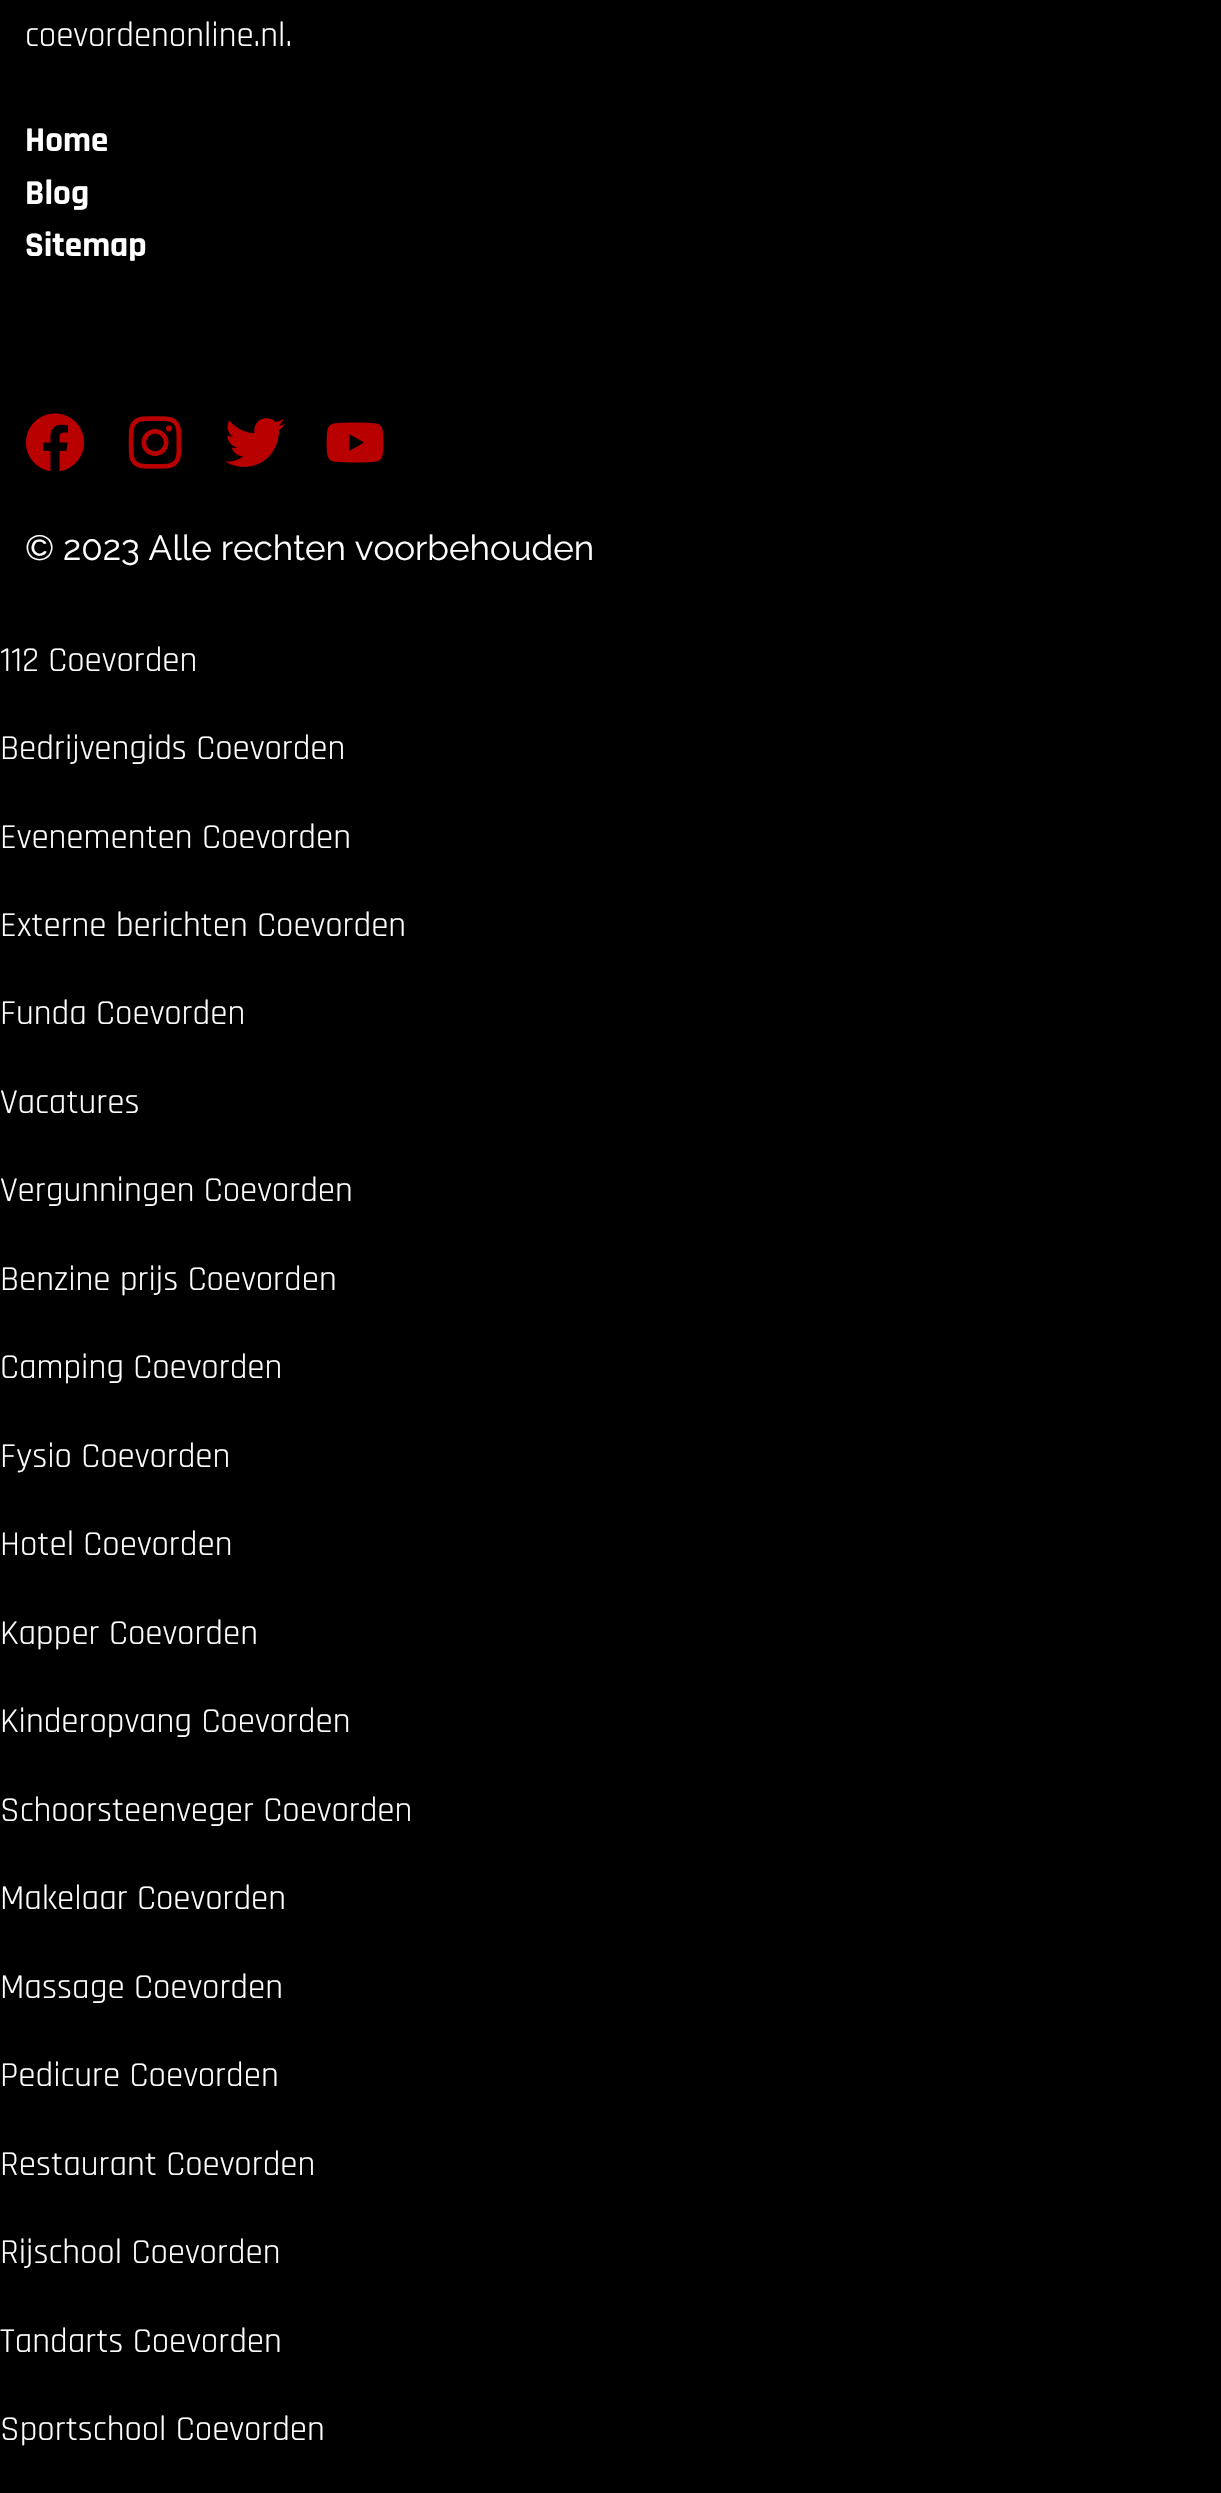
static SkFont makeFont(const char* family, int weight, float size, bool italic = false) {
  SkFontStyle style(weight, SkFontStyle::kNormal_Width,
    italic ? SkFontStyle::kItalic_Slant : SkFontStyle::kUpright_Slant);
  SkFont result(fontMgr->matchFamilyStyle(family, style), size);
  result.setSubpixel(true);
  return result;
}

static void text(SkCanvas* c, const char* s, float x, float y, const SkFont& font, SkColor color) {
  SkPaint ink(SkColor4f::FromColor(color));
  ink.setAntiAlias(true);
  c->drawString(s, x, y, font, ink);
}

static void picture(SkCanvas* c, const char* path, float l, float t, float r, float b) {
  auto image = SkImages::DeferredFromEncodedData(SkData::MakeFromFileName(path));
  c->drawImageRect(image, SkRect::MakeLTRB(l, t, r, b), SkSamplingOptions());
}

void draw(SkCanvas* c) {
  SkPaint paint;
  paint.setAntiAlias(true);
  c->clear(0xff000000);
  SkFont face1 = makeFont("Rajdhani", 400, 35);
  text(c, "coevordenonline.nl.", 25, 46, face1, 0xffffffff);
  SkFont face2 = makeFont("Rajdhani", 700, 35);
  text(c, "Home", 25, 151, face2, 0xffffffff);
  text(c, "Blog", 25, 204, face2, 0xffffffff);
  text(c, "Sitemap", 25, 256, face2, 0xffffffff);
  picture(c, "img_01.png", 25, 413, 85, 472);
  picture(c, "img_02.png", 128, 416, 182, 469);
  picture(c, "img_03.png", 225, 418, 285, 467);
  picture(c, "img_04.png", 326, 422, 384, 463);
  SkFont face3 = makeFont("Raleway", 400, 35);
  text(c, "© 2023 Alle rechten voorbehouden", 25, 560, face3, 0xffffffff);
  text(c, "112 Coevorden", 0, 671, face1, 0xffffffff);
  text(c, "Bedrijvengids Coevorden", 0, 759, face1, 0xffffffff);
  text(c, "Evenementen Coevorden", 0, 848, face1, 0xffffffff);
  text(c, "Externe berichten Coevorden", 0, 936, face1, 0xffffffff);
  text(c, "Funda Coevorden", 0, 1024, face1, 0xffffffff);
  text(c, "Vacatures", 0, 1113, face1, 0xffffffff);
  text(c, "Vergunningen Coevorden", 0, 1201, face1, 0xffffffff);
  text(c, "Benzine prijs Coevorden", 0, 1290, face1, 0xffffffff);
  text(c, "Camping Coevorden", 0, 1378, face1, 0xffffffff);
  text(c, "Fysio Coevorden", 0, 1467, face1, 0xffffffff);
  text(c, "Hotel Coevorden", 0, 1555, face1, 0xffffffff);
  text(c, "Kapper Coevorden", 0, 1644, face1, 0xffffffff);
  text(c, "Kinderopvang Coevorden", 0, 1732, face1, 0xffffffff);
  text(c, "Schoorsteenveger Coevorden", 0, 1821, face1, 0xffffffff);
  text(c, "Makelaar Coevorden", 0, 1909, face1, 0xffffffff);
  text(c, "Massage Coevorden", 0, 1998, face1, 0xffffffff);
  text(c, "Pedicure Coevorden", 0, 2086, face1, 0xffffffff);
  text(c, "Restaurant Coevorden", 0, 2175, face1, 0xffffffff);
  text(c, "Rijschool Coevorden", 0, 2263, face1, 0xffffffff);
  text(c, "Tandarts Coevorden", 0, 2352, face1, 0xffffffff);
  text(c, "Sportschool Coevorden", 0, 2440, face1, 0xffffffff);
}
